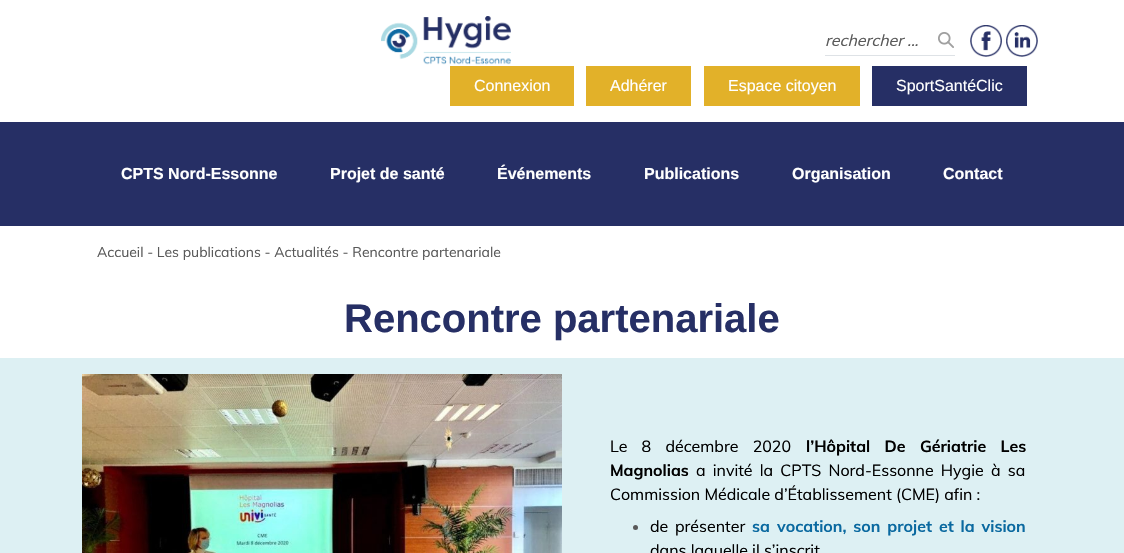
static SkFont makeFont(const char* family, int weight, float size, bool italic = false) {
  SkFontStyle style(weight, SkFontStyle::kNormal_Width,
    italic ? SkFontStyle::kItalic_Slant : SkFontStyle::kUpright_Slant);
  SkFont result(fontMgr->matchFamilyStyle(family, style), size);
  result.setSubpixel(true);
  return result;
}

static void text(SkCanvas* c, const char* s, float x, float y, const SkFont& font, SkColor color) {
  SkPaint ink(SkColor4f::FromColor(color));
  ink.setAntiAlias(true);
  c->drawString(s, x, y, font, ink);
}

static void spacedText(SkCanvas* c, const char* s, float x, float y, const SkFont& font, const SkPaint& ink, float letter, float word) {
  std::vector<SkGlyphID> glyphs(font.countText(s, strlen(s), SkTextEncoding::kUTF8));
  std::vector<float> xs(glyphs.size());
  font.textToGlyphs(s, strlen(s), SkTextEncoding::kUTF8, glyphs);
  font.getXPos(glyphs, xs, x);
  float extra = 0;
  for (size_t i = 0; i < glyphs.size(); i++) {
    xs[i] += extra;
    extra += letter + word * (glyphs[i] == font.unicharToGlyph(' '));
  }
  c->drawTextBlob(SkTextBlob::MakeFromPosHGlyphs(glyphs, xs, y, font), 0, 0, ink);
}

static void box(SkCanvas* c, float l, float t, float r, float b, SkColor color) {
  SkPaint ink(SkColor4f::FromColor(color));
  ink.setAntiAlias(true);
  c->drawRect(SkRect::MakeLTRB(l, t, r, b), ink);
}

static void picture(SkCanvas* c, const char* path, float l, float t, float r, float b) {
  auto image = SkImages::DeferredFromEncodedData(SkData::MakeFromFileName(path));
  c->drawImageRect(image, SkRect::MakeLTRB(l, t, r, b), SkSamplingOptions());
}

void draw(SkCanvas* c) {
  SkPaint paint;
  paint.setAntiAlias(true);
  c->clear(0xffffffff);
  picture(c, "img_01.png", 381, 16, 511, 65);
  box(c, 825, 55, 955, 56, 0xffdee2e6);
  SkFont face1 = makeFont("Mulish", 400, 16, true);
  text(c, "rechercher ...", 825, 46, face1, 0xff595959);
  picture(c, "img_02.png", 938, 32, 954, 48);
  picture(c, "img_03.png", 970, 25, 1002, 57);
  picture(c, "img_04.png", 1006, 25, 1038, 57);
  box(c, 450, 66, 574, 106, 0xffe2b129);
  SkFont face2 = makeFont("Liberation Sans", 400, 16);
  text(c, "Connexion", 474, 91, face2, 0xffffffff);
  box(c, 586, 66, 691, 106, 0xffe2b129);
  text(c, "Adhérer", 610, 91, face2, 0xffffffff);
  box(c, 704, 66, 860, 106, 0xffe2b129);
  text(c, "Espace citoyen", 728, 91, face2, 0xffffffff);
  box(c, 872, 66, 1027, 106, 0xff262f65);
  text(c, "SportSantéClic", 896, 91, face2, 0xffffffff);
  box(c, 0, 122, 1124, 226, 0xff262f65);
  SkFont face3 = makeFont("Liberation Sans", 700, 16);
  text(c, "CPTS Nord-Essonne", 121, 179, face3, 0xffffffff);
  text(c, "Projet de santé", 330, 179, face3, 0xffffffff);
  text(c, "Événements", 497, 179, face3, 0xffffffff);
  text(c, "Publications", 644, 179, face3, 0xffffffff);
  text(c, "Organisation", 792, 179, face3, 0xffffffff);
  text(c, "Contact", 943, 179, face3, 0xffffffff);
  SkFont face4 = makeFont("Mulish", 400, 14);
  text(c, "Accueil - Les publications - Actualités - Rencontre partenariale", 97, 257, face4, 0xff595959);
  SkFont face5 = makeFont("Liberation Sans", 700, 40);
  text(c, "Rencontre partenariale", 344, 332, face5, 0xff262f65);
  box(c, 0, 358, 1124, 553, 0xffddf0f3);
  picture(c, "img_05.png", 82, 374, 562, 553);
  SkFont face6 = makeFont("Mulish", 400, 16);
  paint.setColor(0xff000000);
  spacedText(c, "Le 8 décembre 2020", 610, 452, face6, paint, 0, 10);
  SkFont face7 = makeFont("Mulish", 700, 16);
  spacedText(c, "l’Hôpital De Gériatrie Les", 806, 452, face7, paint, 0, 10);
  text(c, "Magnolias", 610, 476, face7, 0xff000000);
  spacedText(c, "a invité la CPTS Nord-Essonne Hygie à sa", 696, 476, face6, paint, 0, 3);
  text(c, "Commission Médicale d’Établissement (CME) afin :", 610, 500, face6, 0xff000000);
  paint.setColor(0xff595959);
  c->drawCircle(635.5f, 527.5f, 2.5f, paint);
  paint.setColor(0xff000000);
  spacedText(c, "de présenter", 650, 532, face6, paint, 0, 2.5f);
  text(c, "sa", 752, 532, face7, 0xff0a69a0);
  paint.setColor(0xff0a69a0);
  spacedText(c, "vocation, son projet et la vision", 777, 532, face7, paint, 0, 2.5f);
  text(c, "dans laquelle il s’inscrit", 650, 556, face6, 0xff000000);
}
